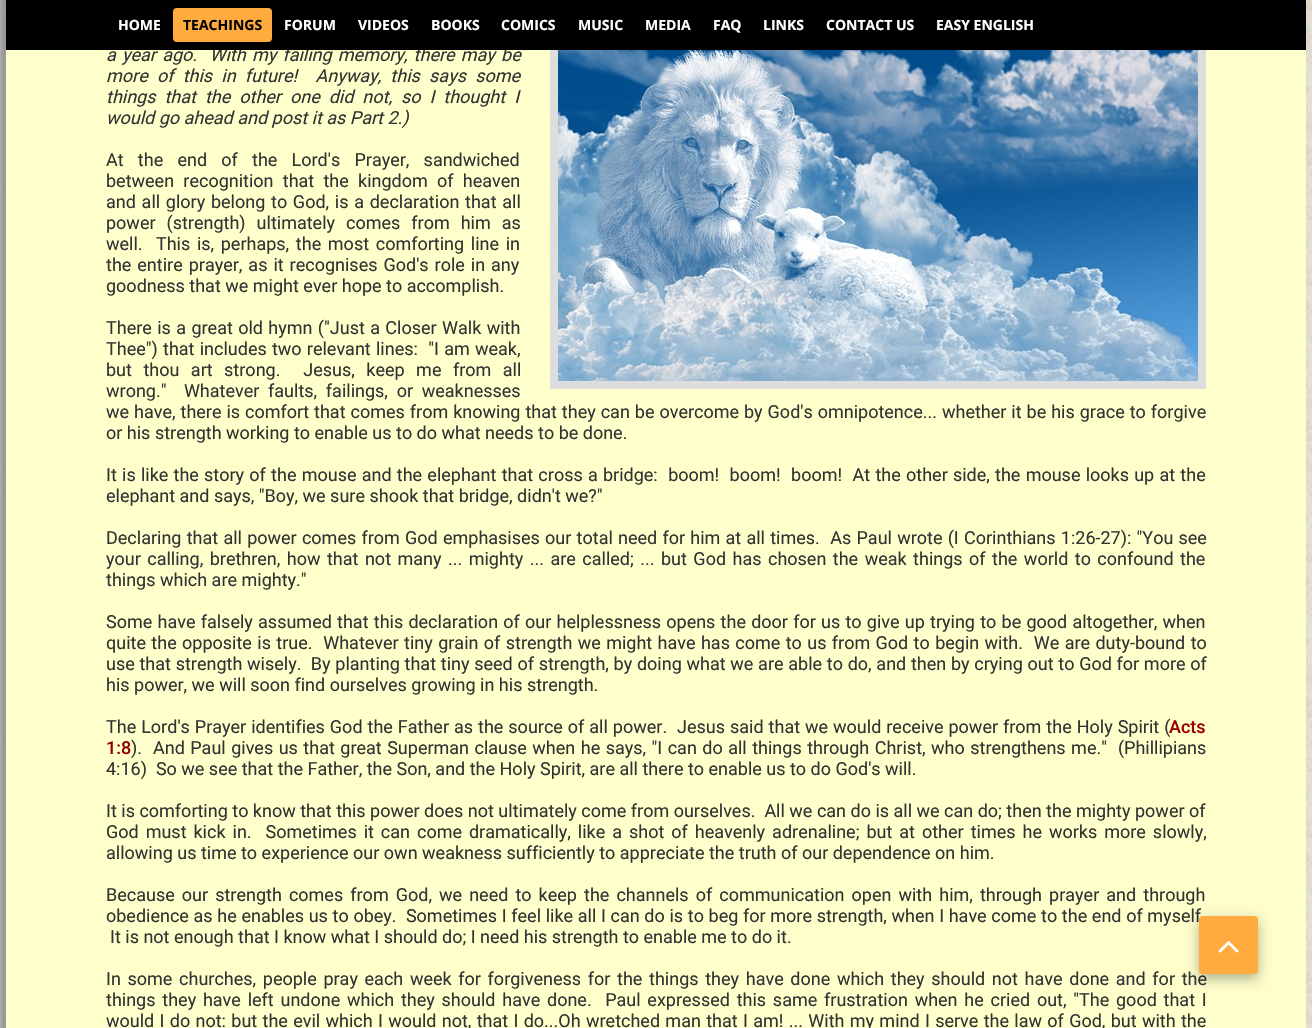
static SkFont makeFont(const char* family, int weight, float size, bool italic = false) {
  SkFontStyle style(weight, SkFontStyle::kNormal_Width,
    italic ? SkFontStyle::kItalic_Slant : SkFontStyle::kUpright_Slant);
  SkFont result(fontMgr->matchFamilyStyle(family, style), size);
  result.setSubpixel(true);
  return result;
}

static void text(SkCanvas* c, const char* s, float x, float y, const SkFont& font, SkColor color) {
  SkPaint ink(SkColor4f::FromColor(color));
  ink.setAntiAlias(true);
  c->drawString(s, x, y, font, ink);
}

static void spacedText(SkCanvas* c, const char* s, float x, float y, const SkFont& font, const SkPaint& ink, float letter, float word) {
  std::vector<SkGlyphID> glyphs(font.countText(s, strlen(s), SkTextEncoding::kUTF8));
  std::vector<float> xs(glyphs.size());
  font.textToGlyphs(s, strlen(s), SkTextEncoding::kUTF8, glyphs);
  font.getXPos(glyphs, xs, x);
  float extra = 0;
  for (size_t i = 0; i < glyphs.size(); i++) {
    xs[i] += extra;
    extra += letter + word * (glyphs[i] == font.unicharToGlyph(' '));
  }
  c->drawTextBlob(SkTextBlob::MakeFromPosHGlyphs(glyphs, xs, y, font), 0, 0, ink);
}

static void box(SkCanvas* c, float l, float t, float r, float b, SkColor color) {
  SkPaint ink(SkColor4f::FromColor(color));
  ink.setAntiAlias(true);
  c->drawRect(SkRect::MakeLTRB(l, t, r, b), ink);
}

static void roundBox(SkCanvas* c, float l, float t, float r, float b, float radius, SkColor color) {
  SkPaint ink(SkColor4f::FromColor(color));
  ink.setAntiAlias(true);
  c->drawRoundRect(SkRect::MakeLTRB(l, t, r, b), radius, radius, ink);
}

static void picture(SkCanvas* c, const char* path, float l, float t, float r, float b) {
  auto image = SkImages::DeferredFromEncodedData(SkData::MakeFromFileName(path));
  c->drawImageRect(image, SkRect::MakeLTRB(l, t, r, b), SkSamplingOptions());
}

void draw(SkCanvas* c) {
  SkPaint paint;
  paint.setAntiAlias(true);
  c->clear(0xffffffff);
  picture(c, "img_01.png", 0, 0, 1312, 1028);
  paint.setColor(0xff999999);
  paint.setMaskFilter(SkMaskFilter::MakeBlur(kNormal_SkBlurStyle, 2.5f));
  c->drawRect(SkRect::MakeLTRB(-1, -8, 1299, 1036), paint);
  paint.setMaskFilter(nullptr);
  box(c, 6, 50, 1306, 1028, 0xffffffcc);
  SkFont face1 = makeFont("Roboto", 400, 18, true);
  paint.setColor(0xff333333);
  spacedText(c, "a year ago.  With my failing memory, there may be", 106, 61, face1, paint, 0, 1.75f);
  box(c, 6, 0, 1306, 50, 0xff000000);
  SkFont face2 = makeFont("Open Sans", 700, 14);
  text(c, "HOME", 118, 30, face2, 0xffffffff);
  roundBox(c, 173, 8, 272, 42, 4, 0xffffab40);
  text(c, "TEACHINGS", 183, 30, face2, 0xff000000);
  text(c, "FORUM", 284, 30, face2, 0xffffffff);
  text(c, "VIDEOS", 358, 30, face2, 0xffffffff);
  text(c, "BOOKS", 431, 30, face2, 0xffffffff);
  text(c, "COMICS", 501, 30, face2, 0xffffffff);
  text(c, "MUSIC", 578, 30, face2, 0xffffffff);
  text(c, "MEDIA", 645, 30, face2, 0xffffffff);
  text(c, "FAQ", 713, 30, face2, 0xffffffff);
  text(c, "LINKS", 763, 30, face2, 0xffffffff);
  text(c, "CONTACT US", 826, 30, face2, 0xffffffff);
  text(c, "EASY ENGLISH", 936, 30, face2, 0xffffffff);
  spacedText(c, "more of this in future!  Anyway, this says some", 106, 82, face1, paint, 0, 4.75f);
  spacedText(c, "things that the other one did not, so I thought I", 106, 103, face1, paint, 0, 4.5f);
  text(c, "would go ahead and post it as Part 2.)", 106, 124, face1, 0xff333333);
  SkFont face3 = makeFont("Roboto", 400, 18);
  spacedText(c, "At the end of the Lord's Prayer, sandwiched", 106, 166, face3, paint, 0, 9.75f);
  spacedText(c, "between recognition that the kingdom of heaven", 106, 187, face3, paint, 0, 4.75f);
  spacedText(c, "and all glory belong to God, is a declaration that all", 106, 208, face3, paint, 0, 1.25f);
  spacedText(c, "power (strength) ultimately comes from him as", 106, 229, face3, paint, 0, 6.5f);
  spacedText(c, "well.  This is, perhaps, the most comforting line in", 106, 250, face3, paint, 0, 2.2f);
  spacedText(c, "the entire prayer, as it recognises God's role in any", 106, 271, face3, paint, 0, 1.5f);
  text(c, "goodness that we might ever hope to accomplish.", 106, 292, face3, 0xff333333);
  spacedText(c, "There is a great old hymn (\"Just a Closer Walk with", 106, 334, face3, paint, 0, 0.9f);
  spacedText(c, "Thee\") that includes two relevant lines:  \"I am weak,", 106, 355, face3, paint, 0, 0.75f);
  spacedText(c, "but thou art strong.  Jesus, keep me from all", 106, 376, face3, paint, 0, 7);
  spacedText(c, "wrong.\"  Whatever faults, failings, or weaknesses", 106, 397, face3, paint, 0, 4.25f);
  spacedText(c, "we have, there is comfort that comes from knowing that they can be overcome by God's omnipotence... whether it be his grace to forgive", 106, 418, face3, paint, 0, 0.5f);
  text(c, "or his strength working to enable us to do what needs to be done.", 106, 439, face3, 0xff333333);
  spacedText(c, "It is like the story of the mouse and the elephant that cross a bridge:  boom!  boom!  boom!  At the other side, the mouse looks up at the", 106, 481, face3, paint, 0, 0.75f);
  text(c, "elephant and says, \"Boy, we sure shook that bridge, didn't we?\"", 106, 502, face3, 0xff333333);
  spacedText(c, "Declaring that all power comes from God emphasises our total need for him at all times.  As Paul wrote (I Corinthians 1:26-27): \"You see", 106, 544, face3, paint, 0, 0.75f);
  spacedText(c, "your calling, brethren, how that not many ... mighty ... are called; ... but God has chosen the weak things of the world to confound the", 106, 565, face3, paint, 0, 2);
  text(c, "things which are mighty.\"", 106, 586, face3, 0xff333333);
  spacedText(c, "Some have falsely assumed that this declaration of our helplessness opens the door for us to give up trying to be good altogether, when", 106, 628, face3, paint, 0, 0.75f);
  spacedText(c, "quite the opposite is true.  Whatever tiny grain of strength we might have has come to us from God to begin with.  We are duty-bound to", 106, 649, face3, paint, 0, 0.9f);
  spacedText(c, "use that strength wisely.  By planting that tiny seed of strength, by doing what we are able to do, and then by crying out to God for more of", 106, 670, face3, paint, 0, 0.25f);
  text(c, "his power, we will soon find ourselves growing in his strength.", 106, 691, face3, 0xff333333);
  spacedText(c, "The Lord's Prayer identifies God the Father as the source of all power.  Jesus said that we would receive power from the Holy Spirit (", 106, 733, face3, paint, 0, 0.5f);
  SkFont face4 = makeFont("Roboto", 500, 18);
  text(c, "Acts", 1169, 733, face4, 0xff990000);
  text(c, "1:8", 106, 754, face4, 0xff990000);
  spacedText(c, ").  And Paul gives us that great Superman clause when he says, \"I can do all things through Christ, who strengthens me.\"  (Phillipians", 131, 754, face3, paint, 0, 1);
  text(c, "4:16)  So we see that the Father, the Son, and the Holy Spirit, are all there to enable us to do God's will.", 106, 775, face3, 0xff333333);
  text(c, "It is comforting to know that this power does not ultimately come from ourselves.  All we can do is all we can do; then the mighty power of", 106, 817, face3, 0xff333333);
  spacedText(c, "God must kick in.  Sometimes it can come dramatically, like a shot of heavenly adrenaline; but at other times he works more slowly,", 106, 838, face3, paint, 0, 2.5f);
  text(c, "allowing us time to experience our own weakness sufficiently to appreciate the truth of our dependence on him.", 106, 859, face3, 0xff333333);
  spacedText(c, "Because our strength comes from God, we need to keep the channels of communication open with him, through prayer and through", 106, 901, face3, paint, 0, 2.6f);
  spacedText(c, "obedience as he enables us to obey.  Sometimes I feel like all I can do is to beg for more strength, when I have come to the end of myself", 106, 922, face3, paint, 0, 0.2f);
  text(c, "It is not enough that I know what I should do; I need his strength to enable me to do it.", 110, 943, face3, 0xff333333);
  spacedText(c, "In some churches, people pray each week for forgiveness for the things they have done which they should not have done and for the", 106, 985, face3, paint, 0, 2.2f);
  spacedText(c, "things they have left undone which they should have done.  Paul expressed this same frustration when he cried out, \"The good that I", 106, 1006, face3, paint, 0, 2.3f);
  spacedText(c, "would I do not: but the evil which I would not, that I do...Oh wretched man that I am! ... With my mind I serve the law of God, but with the", 106, 1027, face3, paint, 0, 0.85f);
  box(c, 550, 50, 1206, 389, 0xffdddddd);
  picture(c, "img_02.png", 558, 50, 1198, 381);
  paint.setColor(0x26000000);
  paint.setMaskFilter(SkMaskFilter::MakeBlur(kNormal_SkBlurStyle, 7.5f));
  c->drawRoundRect(SkRect::MakeLTRB(1199, 920, 1258, 978), 4, 4, paint);
  paint.setMaskFilter(nullptr);
  paint.setColor(0x2e000000);
  paint.setMaskFilter(SkMaskFilter::MakeBlur(kNormal_SkBlurStyle, 5.5f));
  c->drawRoundRect(SkRect::MakeLTRB(1199, 921, 1258, 979), 4, 4, paint);
  paint.setMaskFilter(nullptr);
  roundBox(c, 1199, 916, 1258, 974, 4, 0xffffab40);
  picture(c, "img_03.png", 1218, 941, 1239, 953);
}
